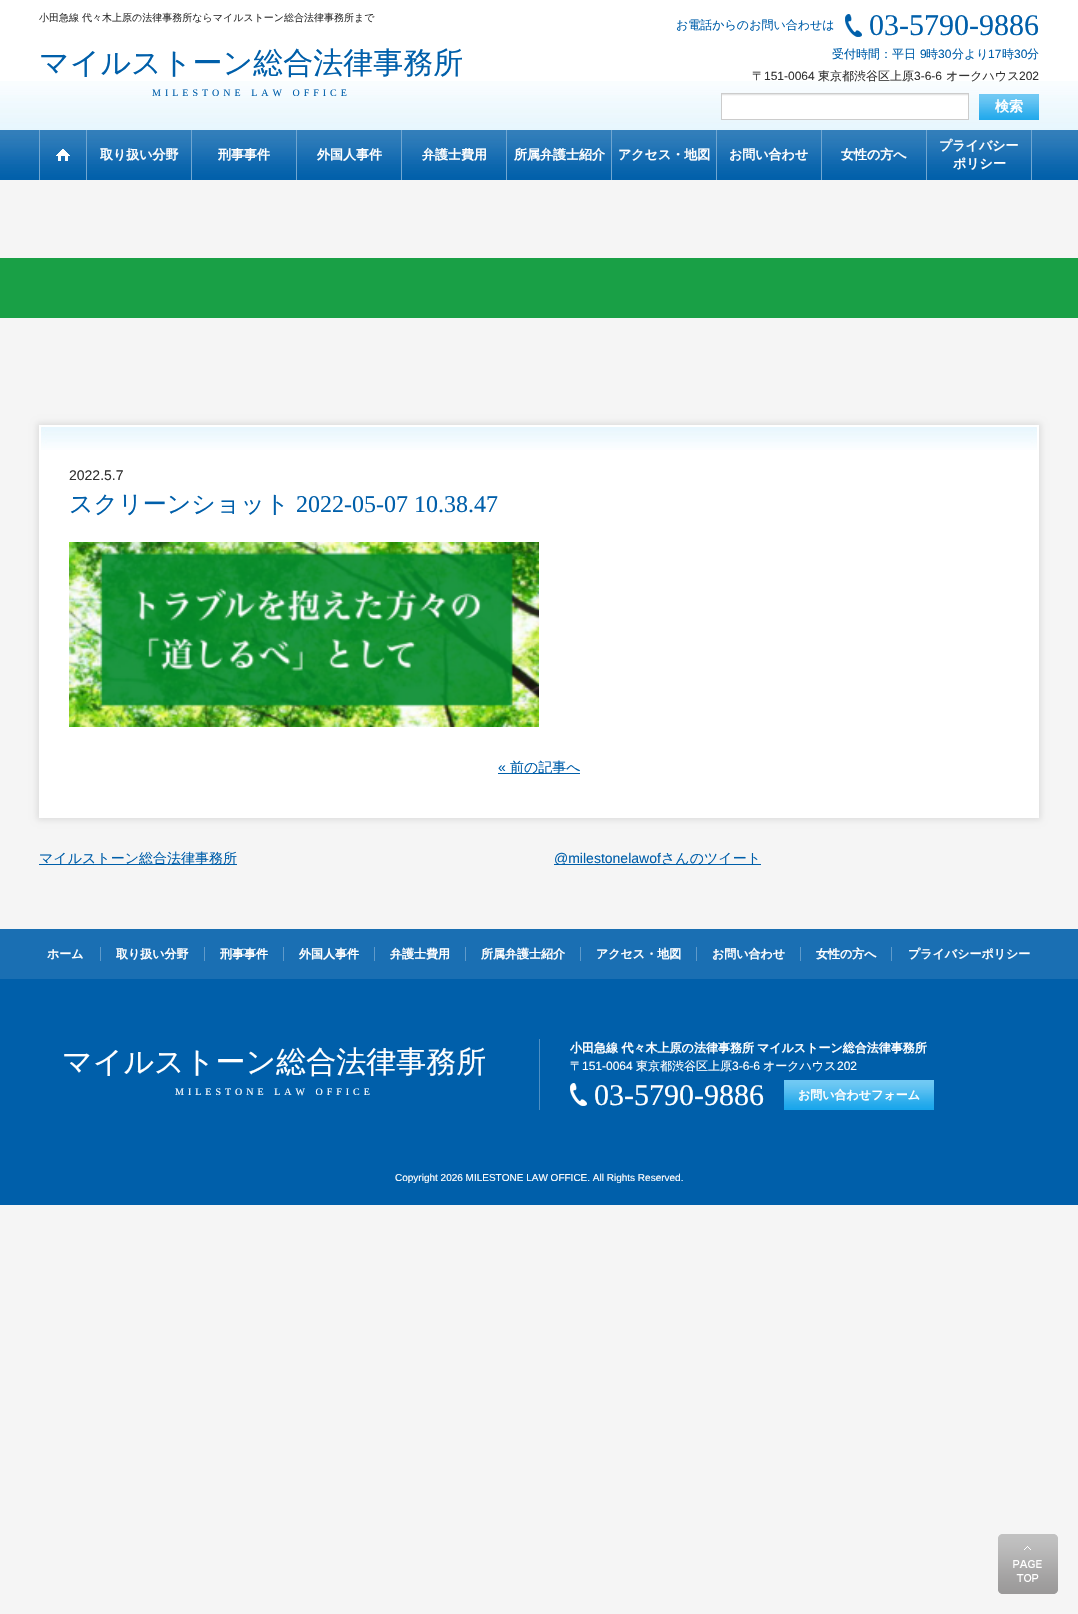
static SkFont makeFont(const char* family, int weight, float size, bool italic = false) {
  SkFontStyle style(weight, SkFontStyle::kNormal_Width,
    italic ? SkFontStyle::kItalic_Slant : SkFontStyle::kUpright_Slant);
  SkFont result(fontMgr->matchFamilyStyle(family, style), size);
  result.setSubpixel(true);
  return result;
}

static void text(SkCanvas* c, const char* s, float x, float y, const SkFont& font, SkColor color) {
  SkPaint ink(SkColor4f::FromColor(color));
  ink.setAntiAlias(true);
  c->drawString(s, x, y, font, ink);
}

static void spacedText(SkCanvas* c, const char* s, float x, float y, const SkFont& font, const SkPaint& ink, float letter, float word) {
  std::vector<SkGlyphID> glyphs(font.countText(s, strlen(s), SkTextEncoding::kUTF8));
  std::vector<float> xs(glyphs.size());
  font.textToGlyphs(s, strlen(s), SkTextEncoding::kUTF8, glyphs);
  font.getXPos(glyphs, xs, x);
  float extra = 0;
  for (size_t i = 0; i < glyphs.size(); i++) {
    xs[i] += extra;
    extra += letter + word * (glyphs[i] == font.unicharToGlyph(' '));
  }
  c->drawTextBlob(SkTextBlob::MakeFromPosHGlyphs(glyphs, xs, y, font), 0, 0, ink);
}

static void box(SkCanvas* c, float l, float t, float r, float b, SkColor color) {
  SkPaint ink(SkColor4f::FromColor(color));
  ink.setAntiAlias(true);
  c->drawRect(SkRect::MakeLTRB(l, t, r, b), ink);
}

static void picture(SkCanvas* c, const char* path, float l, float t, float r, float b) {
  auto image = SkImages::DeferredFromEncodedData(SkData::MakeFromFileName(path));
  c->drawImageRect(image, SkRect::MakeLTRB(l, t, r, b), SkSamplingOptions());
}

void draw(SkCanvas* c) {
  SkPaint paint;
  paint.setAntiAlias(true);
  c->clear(0xfff5f5f5);
  box(c, 0, 0, 1078, 81, 0xffffffff);
  picture(c, "img_01.png", 0, 81, 1078, 130);
  SkFont face1 = makeFont("WenQuanYi Zen Hei", 500, 10);
  text(c, "小田急線 代々木上原の法律事務所ならマイルストーン総合法律事務所まで", 39, 21, face1, 0xff333333);
  SkFont face2 = makeFont("WenQuanYi Zen Hei", 500, 12);
  text(c, "お電話からのお問い合わせは", 676, 29, face2, 0xff005faa);
  picture(c, "img_02.png", 845, 14, 862, 37);
  SkFont face3 = makeFont("Liberation Serif", 400, 30);
  text(c, "03-5790-9886", 869, 35, face3, 0xff005faa);
  text(c, "受付時間：平日", 832, 58, face2, 0xff005faa);
  SkFont face4 = makeFont("Liberation Sans", 400, 12);
  text(c, "9", 920, 58, face4, 0xff005faa);
  text(c, "時", 926, 58, face2, 0xff005faa);
  text(c, "30", 938, 58, face4, 0xff005faa);
  text(c, "分より", 952, 58, face2, 0xff005faa);
  text(c, "17", 988, 58, face4, 0xff005faa);
  text(c, "時", 1002, 58, face2, 0xff005faa);
  text(c, "30", 1014, 58, face4, 0xff005faa);
  text(c, "分", 1027, 58, face2, 0xff005faa);
  SkFont face5 = makeFont("WenQuanYi Zen Hei", 500, 30);
  text(c, "マイルストーン総合法律事務所", 39, 73, face5, 0xff005faa);
  SkFont face6 = makeFont("Liberation Serif", 400, 10);
  paint.setColor(0xff005faa);
  spacedText(c, "MILESTONE LAW OFFICE", 152, 96, face6, paint, 4, 0);
  text(c, "〒", 752, 80, face2, 0xff333333);
  text(c, "151-0064", 764, 80, face4, 0xff333333);
  text(c, "東京都渋谷区上原", 818, 80, face2, 0xff333333);
  text(c, "3-6-6", 914, 80, face4, 0xff333333);
  text(c, "オークハウス", 946, 80, face2, 0xff333333);
  text(c, "202", 1019, 80, face4, 0xff333333);
  box(c, 722, 96, 968, 119, 0xffffffff);
  picture(c, "img_03.png", 722, 94, 968, 96);
  paint.setStyle(SkPaint::kStroke_Style);
  paint.setStrokeWidth(1);
  paint.setColor(0xffcccccc);
  c->drawRect(SkRect::MakeLTRB(721.5f, 93.5f, 968.5f, 119.5f), paint);
  picture(c, "img_04.png", 979, 94, 1039, 120);
  SkFont face7 = makeFont("WenQuanYi Zen Hei", 700, 14);
  text(c, "検索", 995, 111, face7, 0xffffffff);
  picture(c, "img_05.png", 0, 130, 1078, 180);
  box(c, 86, 130, 87, 180, 0xff71a6d0);
  box(c, 39, 130, 40, 180, 0xff71a6d0);
  picture(c, "img_06.png", 56, 149, 70, 161);
  box(c, 191, 130, 192, 180, 0xff71a6d0);
  SkFont face8 = makeFont("WenQuanYi Zen Hei", 700, 13);
  text(c, "取り扱い分野", 100, 159, face8, 0xffffffff);
  box(c, 296, 130, 297, 180, 0xff71a6d0);
  text(c, "刑事事件", 218, 159, face8, 0xffffffff);
  box(c, 401, 130, 402, 180, 0xff71a6d0);
  text(c, "外国人事件", 317, 159, face8, 0xffffffff);
  box(c, 506, 130, 507, 180, 0xff71a6d0);
  text(c, "弁護士費用", 422, 159, face8, 0xffffffff);
  box(c, 611, 130, 612, 180, 0xff71a6d0);
  text(c, "所属弁護士紹介", 514, 159, face8, 0xffffffff);
  box(c, 716, 130, 717, 180, 0xff71a6d0);
  text(c, "アクセス・地図", 618, 159, face8, 0xffffffff);
  box(c, 821, 130, 822, 180, 0xff71a6d0);
  text(c, "お問い合わせ", 729, 159, face8, 0xffffffff);
  box(c, 926, 130, 927, 180, 0xff71a6d0);
  text(c, "女性の方へ", 841, 159, face8, 0xffffffff);
  box(c, 1031, 130, 1032, 180, 0xff71a6d0);
  text(c, "プライバシー", 939, 150, face8, 0xffffffff);
  text(c, "ポリシー", 953, 168, face8, 0xffffffff);
  box(c, 0, 258, 1078, 318, 0xff19a046);
  paint.setStyle(SkPaint::kFill_Style);
  paint.setColor(0xffdddddd);
  paint.setMaskFilter(SkMaskFilter::MakeBlur(kNormal_SkBlurStyle, 3));
  c->drawRect(SkRect::MakeLTRB(37, 423, 1041, 820), paint);
  paint.setMaskFilter(nullptr);
  box(c, 39, 425, 1039, 818, 0xffffffff);
  picture(c, "img_07.png", 41, 427, 1037, 450);
  SkFont face9 = makeFont("Liberation Sans", 400, 14);
  text(c, "2022.5.7", 69, 480, face9, 0xff333333);
  SkFont face10 = makeFont("WenQuanYi Zen Hei", 500, 24);
  text(c, "スクリーンショット", 69, 512, face10, 0xff005faa);
  SkFont face11 = makeFont("Liberation Serif", 400, 24);
  text(c, "2022-05-07 10.38.47", 296, 512, face11, 0xff005faa);
  picture(c, "img_08.png", 69, 542, 539, 727);
  text(c, "«", 498, 772, face9, 0xff005faa);
  box(c, 498, 773, 580, 774, 0xff005faa);
  SkFont face12 = makeFont("WenQuanYi Zen Hei", 500, 14);
  text(c, "前の記事へ", 510, 772, face12, 0xff005faa);
  box(c, 39, 864, 237, 865, 0xff005faa);
  text(c, "マイルストーン総合法律事務所", 39, 863, face12, 0xff005faa);
  box(c, 554, 864, 761, 865, 0xff005faa);
  text(c, "@milestonelawof", 554, 863, face9, 0xff005faa);
  text(c, "さんのツイート", 661, 863, face12, 0xff005faa);
  box(c, 0, 979, 1078, 1205, 0xff005faa);
  box(c, 0, 929, 1078, 979, 0xff1a6fb3);
  SkFont face13 = makeFont("WenQuanYi Zen Hei", 700, 12);
  text(c, "ホーム", 47, 958, face13, 0xffffffff);
  box(c, 100, 947, 101, 961, 0xff5f9aca);
  text(c, "取り扱い分野", 116, 958, face13, 0xffffffff);
  box(c, 204, 947, 205, 961, 0xff5f9aca);
  text(c, "刑事事件", 220, 958, face13, 0xffffffff);
  box(c, 283, 947, 284, 961, 0xff5f9aca);
  text(c, "外国人事件", 299, 958, face13, 0xffffffff);
  box(c, 374, 947, 375, 961, 0xff5f9aca);
  text(c, "弁護士費用", 390, 958, face13, 0xffffffff);
  box(c, 465, 947, 466, 961, 0xff5f9aca);
  text(c, "所属弁護士紹介", 481, 958, face13, 0xffffffff);
  box(c, 580, 947, 581, 961, 0xff5f9aca);
  text(c, "アクセス・地図", 596, 958, face13, 0xffffffff);
  box(c, 696, 947, 697, 961, 0xff5f9aca);
  text(c, "お問い合わせ", 712, 958, face13, 0xffffffff);
  box(c, 800, 947, 801, 961, 0xff5f9aca);
  text(c, "女性の方へ", 816, 958, face13, 0xffffffff);
  box(c, 891, 947, 892, 961, 0xff5f9aca);
  text(c, "プライバシーポリシー", 908, 958, face13, 0xffffffff);
  text(c, "マイルストーン総合法律事務所", 62, 1072, face5, 0xffffffff);
  paint.setColor(0xffffffff);
  spacedText(c, "MILESTONE LAW OFFICE", 175, 1095, face6, paint, 4, 0);
  box(c, 539, 1039, 540, 1110, 0xff4d8fc4);
  text(c, "小田急線 代々木上原の法律事務所", 570, 1052, face13, 0xffffffff);
  text(c, "マイルストーン総合法律事務所", 757, 1052, face13, 0xffffffff);
  text(c, "〒", 570, 1070, face2, 0xffffffff);
  text(c, "151-0064", 582, 1070, face4, 0xffffffff);
  text(c, "東京都渋谷区上原", 636, 1070, face2, 0xffffffff);
  text(c, "3-6-6", 732, 1070, face4, 0xffffffff);
  text(c, "オークハウス", 763, 1070, face2, 0xffffffff);
  text(c, "202", 837, 1070, face4, 0xffffffff);
  picture(c, "img_09.png", 570, 1083, 587, 1106);
  text(c, "03-5790-9886", 594, 1105, face3, 0xffffffff);
  picture(c, "img_10.png", 784, 1080, 934, 1110);
  text(c, "お問い合わせフォーム", 798, 1099, face13, 0xffffffff);
  SkFont face14 = makeFont("Liberation Sans", 400, 10);
  text(c, "Copyright 2026 MILESTONE LAW OFFICE. All Rights Reserved.", 395, 1181, face14, 0xffffffff);
  picture(c, "img_11.png", 998, 1534, 1058, 1594);
}
